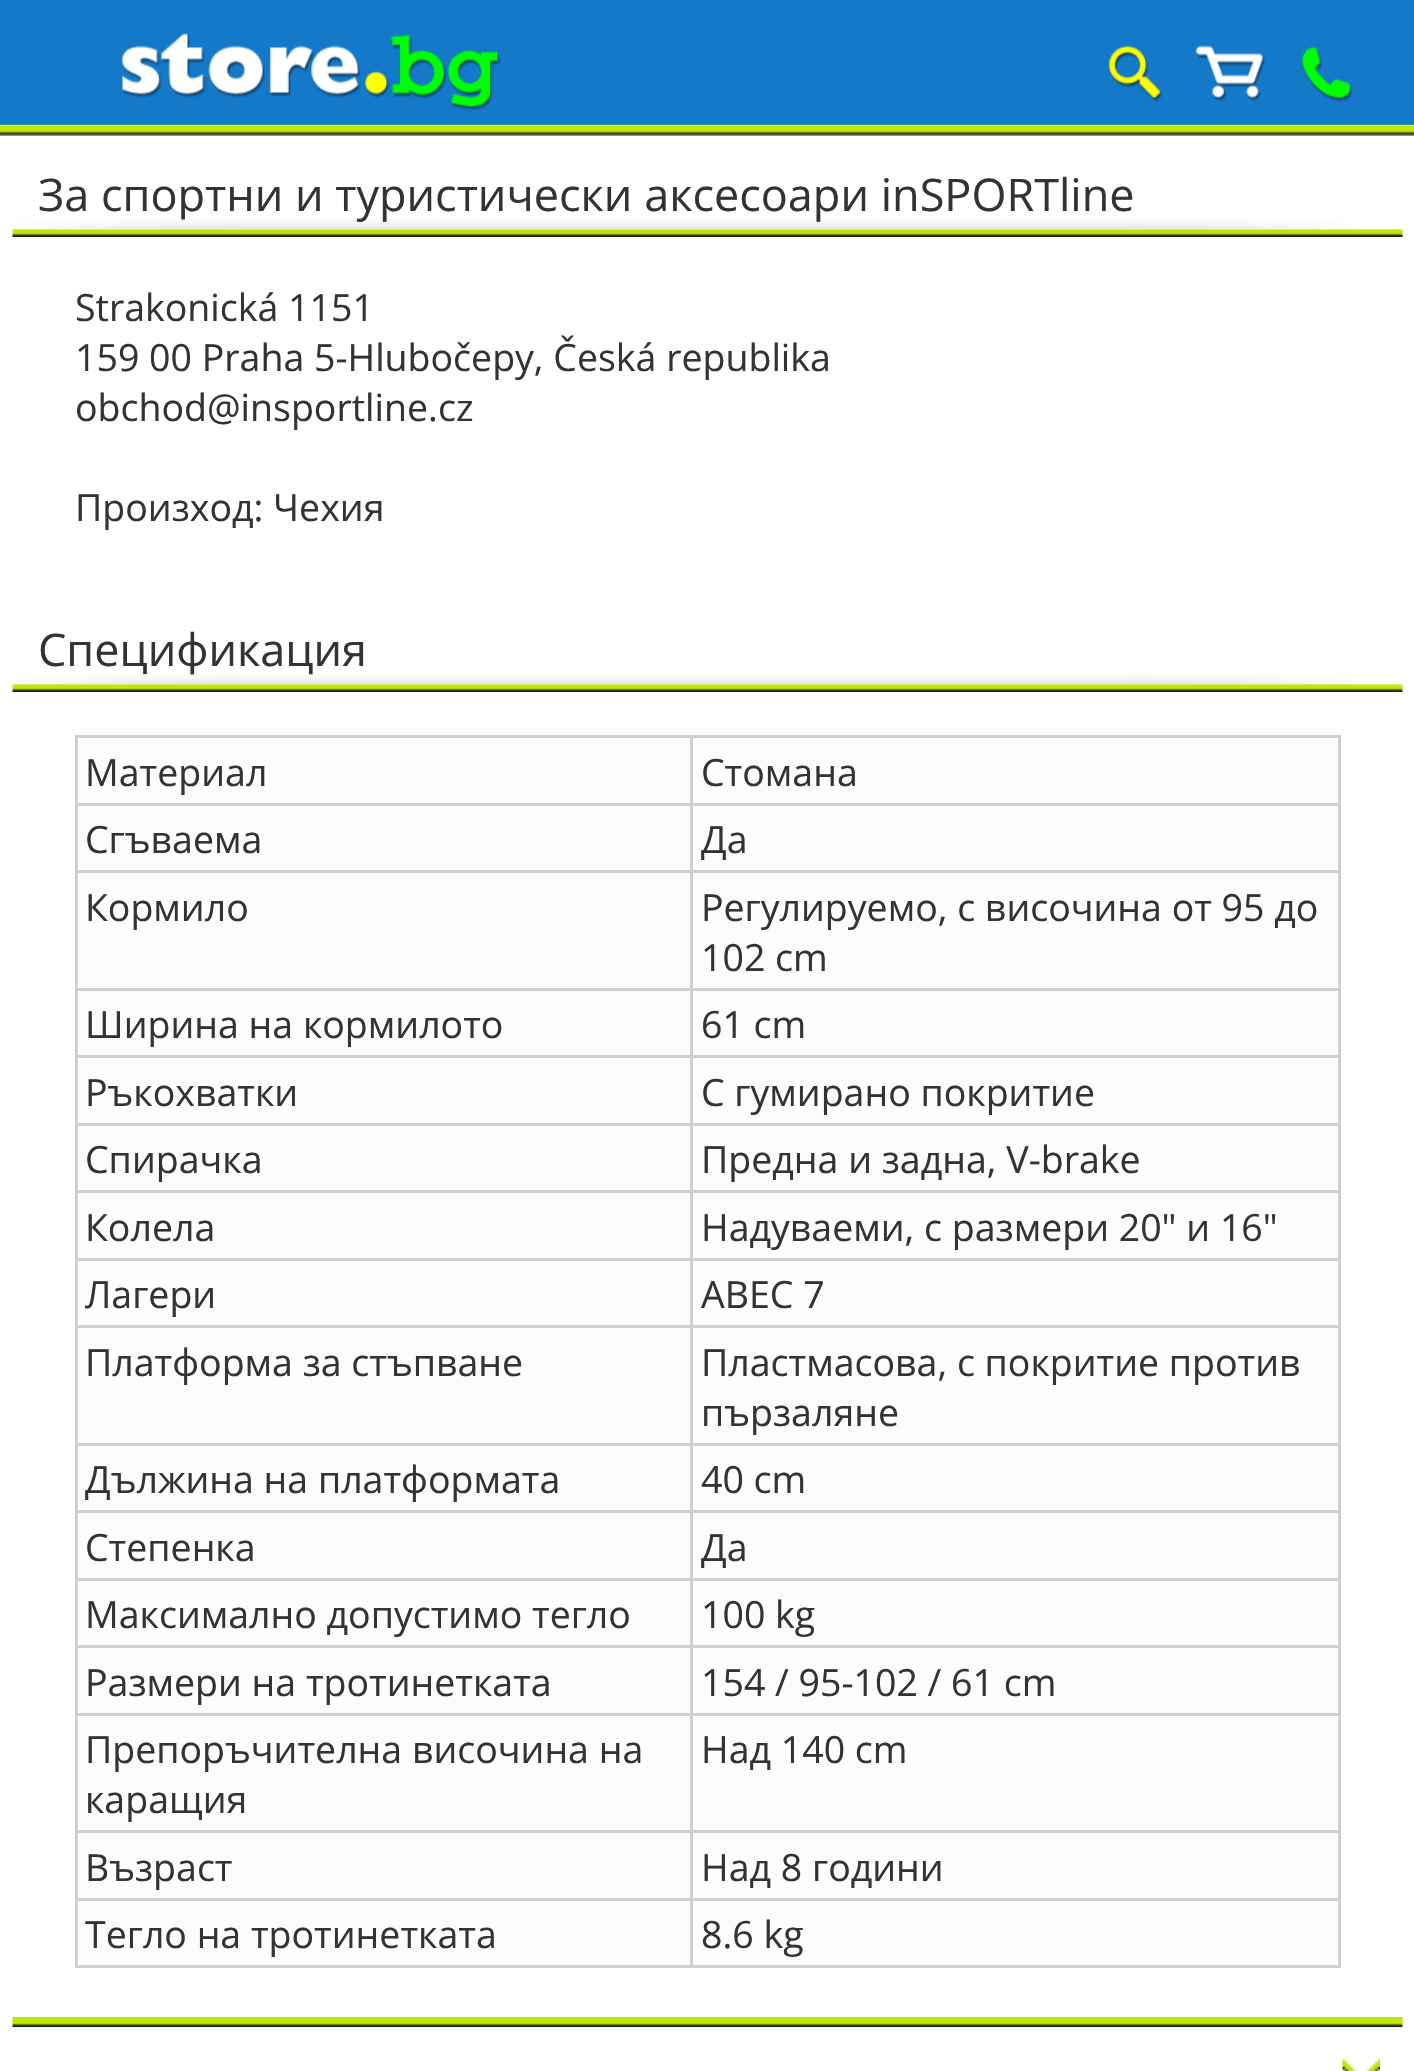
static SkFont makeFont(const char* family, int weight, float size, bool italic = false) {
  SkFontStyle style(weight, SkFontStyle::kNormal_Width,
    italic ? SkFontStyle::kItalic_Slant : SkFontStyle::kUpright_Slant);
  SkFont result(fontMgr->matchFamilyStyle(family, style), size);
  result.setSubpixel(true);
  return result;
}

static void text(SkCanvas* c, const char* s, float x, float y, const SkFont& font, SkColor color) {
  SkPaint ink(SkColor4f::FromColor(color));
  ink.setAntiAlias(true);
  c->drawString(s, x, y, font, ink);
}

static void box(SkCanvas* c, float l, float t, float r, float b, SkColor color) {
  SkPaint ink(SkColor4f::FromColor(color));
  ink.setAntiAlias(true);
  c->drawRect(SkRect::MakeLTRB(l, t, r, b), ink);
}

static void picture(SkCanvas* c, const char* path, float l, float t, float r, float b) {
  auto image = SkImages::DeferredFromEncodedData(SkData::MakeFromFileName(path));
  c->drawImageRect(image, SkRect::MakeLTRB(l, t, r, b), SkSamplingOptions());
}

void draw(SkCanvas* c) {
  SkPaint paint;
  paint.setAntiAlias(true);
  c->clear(0xffffffff);
  box(c, 0, 0, 1414, 125, 0xff1479c9);
  picture(c, "img_01.png", 122, 33, 500, 111);
  picture(c, "img_02.png", 1108, 45, 1163, 102);
  picture(c, "img_03.png", 1196, 45, 1265, 102);
  picture(c, "img_04.png", 1302, 46, 1353, 102);
  picture(c, "img_05.png", 0, 124, 1414, 136);
  SkFont face1 = makeFont("Open Sans", 400, 45);
  text(c, "За спортни и туристически аксесоари inSPORTline", 38, 211, face1, 0xff333333);
  picture(c, "img_06.png", 12, 219, 1403, 230);
  picture(c, "img_07.png", 12, 229, 1403, 237);
  SkFont face2 = makeFont("Open Sans", 400, 37.5f);
  text(c, "Strakonická 1151", 75, 321, face2, 0xff333333);
  text(c, "159 00 Praha 5-Hlubočepy, Česká republika", 75, 371, face2, 0xff333333);
  text(c, "obchod@insportline.cz", 75, 421, face2, 0xff333333);
  text(c, "Произход: Чехия", 75, 521, face2, 0xff333333);
  text(c, "Спецификация", 38, 666, face1, 0xff333333);
  picture(c, "img_08.png", 12, 674, 1403, 685);
  picture(c, "img_09.png", 12, 684, 1403, 692);
  box(c, 78, 738, 1338, 1965, 0xfffcfcfc);
  box(c, 75, 735, 1340, 738, 0xffcfcfcf);
  box(c, 1338, 735, 1341, 1968, 0xffcfcfcf);
  box(c, 75, 1965, 1340, 1968, 0xffcfcfcf);
  box(c, 75, 735, 78, 1968, 0xffcfcfcf);
  text(c, "Материал", 85, 786, face2, 0xff333333);
  box(c, 690, 803, 1340, 806, 0xffcfcfcf);
  box(c, 690, 870, 1340, 873, 0xffcfcfcf);
  box(c, 690, 988, 1340, 991, 0xffcfcfcf);
  box(c, 690, 1055, 1340, 1058, 0xffcfcfcf);
  box(c, 690, 1123, 1340, 1126, 0xffcfcfcf);
  box(c, 690, 1190, 1340, 1193, 0xffcfcfcf);
  box(c, 690, 1258, 1340, 1261, 0xffcfcfcf);
  box(c, 690, 1325, 1340, 1328, 0xffcfcfcf);
  box(c, 690, 1443, 1340, 1446, 0xffcfcfcf);
  box(c, 690, 1510, 1340, 1513, 0xffcfcfcf);
  box(c, 690, 1578, 1340, 1581, 0xffcfcfcf);
  box(c, 690, 1645, 1340, 1648, 0xffcfcfcf);
  box(c, 690, 1713, 1340, 1716, 0xffcfcfcf);
  box(c, 690, 1830, 1340, 1833, 0xffcfcfcf);
  box(c, 690, 1898, 1340, 1901, 0xffcfcfcf);
  box(c, 690, 1898, 693, 1968, 0xffcfcfcf);
  box(c, 75, 1898, 693, 1901, 0xffcfcfcf);
  box(c, 690, 1830, 693, 1900, 0xffcfcfcf);
  box(c, 75, 1830, 693, 1833, 0xffcfcfcf);
  box(c, 690, 1713, 693, 1833, 0xffcfcfcf);
  box(c, 75, 1713, 693, 1716, 0xffcfcfcf);
  box(c, 690, 1645, 693, 1715, 0xffcfcfcf);
  box(c, 75, 1645, 693, 1648, 0xffcfcfcf);
  box(c, 690, 1578, 693, 1648, 0xffcfcfcf);
  box(c, 75, 1578, 693, 1581, 0xffcfcfcf);
  box(c, 690, 1510, 693, 1580, 0xffcfcfcf);
  box(c, 75, 1510, 693, 1513, 0xffcfcfcf);
  box(c, 690, 1443, 693, 1513, 0xffcfcfcf);
  box(c, 75, 1443, 693, 1446, 0xffcfcfcf);
  box(c, 690, 1325, 693, 1445, 0xffcfcfcf);
  box(c, 75, 1325, 693, 1328, 0xffcfcfcf);
  box(c, 690, 1258, 693, 1328, 0xffcfcfcf);
  box(c, 75, 1258, 693, 1261, 0xffcfcfcf);
  box(c, 690, 1190, 693, 1260, 0xffcfcfcf);
  box(c, 75, 1190, 693, 1193, 0xffcfcfcf);
  box(c, 690, 1123, 693, 1193, 0xffcfcfcf);
  box(c, 75, 1123, 693, 1126, 0xffcfcfcf);
  box(c, 690, 1055, 693, 1125, 0xffcfcfcf);
  box(c, 75, 1055, 693, 1058, 0xffcfcfcf);
  box(c, 690, 988, 693, 1058, 0xffcfcfcf);
  box(c, 75, 988, 693, 991, 0xffcfcfcf);
  box(c, 690, 870, 693, 990, 0xffcfcfcf);
  box(c, 75, 870, 693, 873, 0xffcfcfcf);
  box(c, 690, 803, 693, 873, 0xffcfcfcf);
  box(c, 75, 803, 693, 806, 0xffcfcfcf);
  box(c, 690, 735, 693, 805, 0xffcfcfcf);
  text(c, "Стомана", 701, 786, face2, 0xff333333);
  text(c, "Сгъваема", 85, 853, face2, 0xff333333);
  text(c, "Да", 701, 853, face2, 0xff333333);
  text(c, "Кормило", 85, 921, face2, 0xff333333);
  text(c, "Регулируемо, с височина от 95 до", 701, 921, face2, 0xff333333);
  text(c, "102 cm", 701, 971, face2, 0xff333333);
  text(c, "Ширина на кормилото", 85, 1038, face2, 0xff333333);
  text(c, "61 cm", 701, 1038, face2, 0xff333333);
  text(c, "Ръкохватки", 85, 1106, face2, 0xff333333);
  text(c, "С гумирано покритие", 701, 1106, face2, 0xff333333);
  text(c, "Спирачка", 85, 1173, face2, 0xff333333);
  text(c, "Предна и задна, V-brake", 701, 1173, face2, 0xff333333);
  text(c, "Колела", 85, 1241, face2, 0xff333333);
  text(c, "Надуваеми, с размери 20\" и 16\"", 701, 1241, face2, 0xff333333);
  text(c, "Лагери", 85, 1308, face2, 0xff333333);
  text(c, "ABEC 7", 701, 1308, face2, 0xff333333);
  text(c, "Платформа за стъпване", 85, 1376, face2, 0xff333333);
  text(c, "Пластмасова, с покритие против", 701, 1376, face2, 0xff333333);
  text(c, "пързаляне", 701, 1426, face2, 0xff333333);
  text(c, "Дължина на платформата", 85, 1493, face2, 0xff333333);
  text(c, "40 cm", 701, 1493, face2, 0xff333333);
  text(c, "Степенка", 85, 1561, face2, 0xff333333);
  text(c, "Да", 701, 1561, face2, 0xff333333);
  text(c, "Максимално допустимо тегло", 85, 1628, face2, 0xff333333);
  text(c, "100 kg", 701, 1628, face2, 0xff333333);
  text(c, "Размери на тротинетката", 85, 1696, face2, 0xff333333);
  text(c, "154 / 95-102 / 61 cm", 701, 1696, face2, 0xff333333);
  text(c, "Препоръчителна височина на", 85, 1763, face2, 0xff333333);
  text(c, "каращия", 85, 1813, face2, 0xff333333);
  text(c, "Над 140 cm", 701, 1763, face2, 0xff333333);
  text(c, "Възраст", 85, 1881, face2, 0xff333333);
  text(c, "Над 8 години", 701, 1881, face2, 0xff333333);
  text(c, "Тегло на тротинетката", 85, 1948, face2, 0xff333333);
  text(c, "8.6 kg", 701, 1948, face2, 0xff333333);
  box(c, 13, 2018, 1403, 2028, 0xfff6f6f6);
  picture(c, "img_10.png", 12, 2017, 1403, 2027);
  picture(c, "img_11.png", 1342, 2058, 1380, 2071);
}
